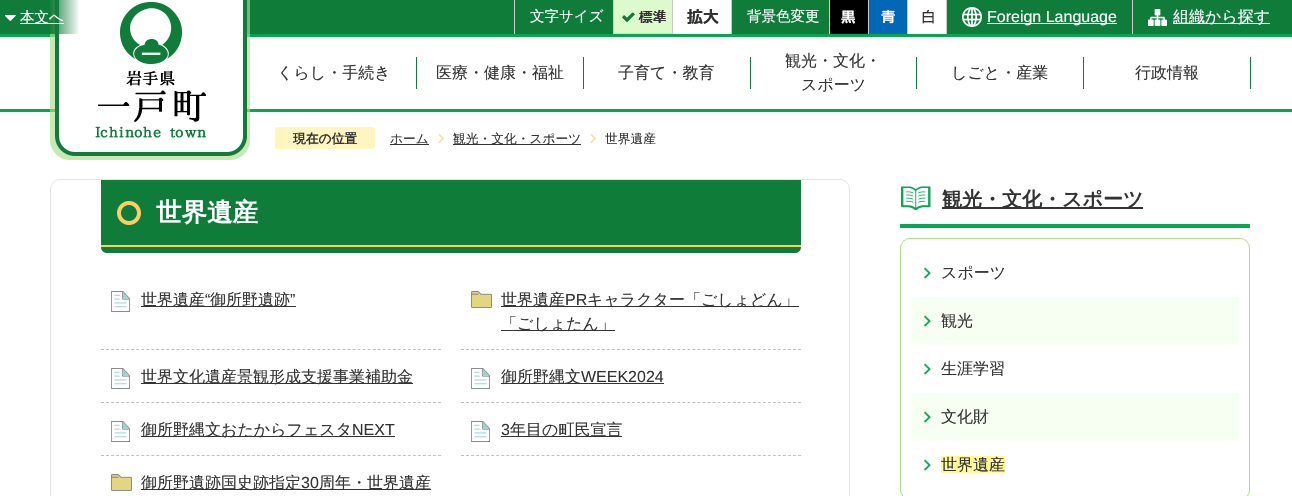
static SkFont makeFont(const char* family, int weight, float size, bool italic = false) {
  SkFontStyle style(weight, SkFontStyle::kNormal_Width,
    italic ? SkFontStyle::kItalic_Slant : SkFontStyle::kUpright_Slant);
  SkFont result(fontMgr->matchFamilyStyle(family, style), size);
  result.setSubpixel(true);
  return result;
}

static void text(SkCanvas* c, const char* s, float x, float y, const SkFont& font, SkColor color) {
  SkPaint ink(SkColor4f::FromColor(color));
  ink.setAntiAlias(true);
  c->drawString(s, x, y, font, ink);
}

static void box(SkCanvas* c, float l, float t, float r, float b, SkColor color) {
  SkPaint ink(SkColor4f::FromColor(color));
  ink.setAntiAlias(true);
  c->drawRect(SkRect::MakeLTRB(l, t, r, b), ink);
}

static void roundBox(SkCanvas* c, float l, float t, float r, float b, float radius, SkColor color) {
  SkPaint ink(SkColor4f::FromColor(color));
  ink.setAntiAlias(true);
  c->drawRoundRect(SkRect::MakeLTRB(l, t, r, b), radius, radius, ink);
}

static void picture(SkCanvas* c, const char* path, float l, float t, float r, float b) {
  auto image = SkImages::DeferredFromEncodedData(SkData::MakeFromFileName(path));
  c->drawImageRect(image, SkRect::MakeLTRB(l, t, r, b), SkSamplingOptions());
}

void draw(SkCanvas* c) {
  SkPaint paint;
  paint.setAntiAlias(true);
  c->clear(0xffffffff);
  box(c, 48, 0, 1292, 34, 0xff0f7c3a);
  box(c, 0, 34, 1292, 37, 0xff07a752);
  box(c, 0, 109, 1292, 112, 0xff07a752);
  picture(c, "img_02.png", 50, 0, 250, 160);
  {
    const SkColor colors[] = {0xff0f7c3a, 0x000f7c3a};
    const float stops[] = {0.6f, 1};
    const SkPoint ends[] = {{0, 17}, {80, 17}};
    paint.setShader(SkGradientShader::MakeLinear(ends, colors, stops, 2, SkTileMode::kClamp));
    paint.setAlpha(255);
  }
  c->drawRect(SkRect::MakeLTRB(0, 0, 79, 34), paint);
  picture(c, "img_01.png", 5, 15, 16, 21);
  box(c, 20, 23, 64, 24, 0xffffffff);
  SkFont face1 = makeFont("WenQuanYi Zen Hei", 500, 14.5f);
  text(c, "本文へ", 20, 22, face1, 0xffffffff);
  box(c, 514, 0, 515, 34, 0xffcccccc);
  text(c, "文字サイズ", 530, 21, face1, 0xffffffff);
  box(c, 613, 0, 614, 34, 0xffcccccc);
  picture(c, "img_03.png", 614, 0, 672, 34);
  box(c, 672, 0, 673, 34, 0xffcccccc);
  box(c, 673, 0, 731, 34, 0xffffffff);
  picture(c, "img_04.png", 687, 9, 719, 24);
  box(c, 731, 0, 732, 34, 0xffcccccc);
  text(c, "背景色変更", 747, 21, face1, 0xffffffff);
  box(c, 829, 0, 830, 34, 0xffcccccc);
  picture(c, "img_05.png", 830, 0, 868, 34);
  box(c, 868, 0, 869, 34, 0xffcccccc);
  picture(c, "img_06.png", 869, 0, 907, 34);
  box(c, 907, 0, 908, 34, 0xffcccccc);
  box(c, 908, 0, 946, 34, 0xffffffff);
  picture(c, "img_07.png", 922, 10, 934, 24);
  picture(c, "img_08.png", 962, 7, 982, 27);
  box(c, 946, 0, 947, 34, 0xffcccccc);
  box(c, 987, 23, 1117, 24, 0xffffffff);
  SkFont face2 = makeFont("Liberation Sans", 400, 16);
  text(c, "Foreign Language", 987, 22, face2, 0xffffffff);
  picture(c, "img_09.png", 1148, 9, 1167, 26);
  box(c, 1132, 0, 1133, 34, 0xffcccccc);
  box(c, 1173, 23, 1270, 24, 0xffffffff);
  SkFont face3 = makeFont("WenQuanYi Zen Hei", 500, 16);
  text(c, "組織から探す", 1173, 22, face3, 0xffffffff);
  text(c, "くらし・手続き", 277, 78, face3, 0xff333333);
  box(c, 416, 57, 417, 89, 0xff0f7c3a);
  text(c, "医療・健康・福祉", 436, 78, face3, 0xff333333);
  box(c, 583, 57, 584, 89, 0xff0f7c3a);
  text(c, "子育て・教育", 618, 78, face3, 0xff333333);
  box(c, 750, 57, 751, 89, 0xff0f7c3a);
  text(c, "観光・文化・", 785, 66, face3, 0xff333333);
  box(c, 916, 57, 917, 89, 0xff0f7c3a);
  text(c, "スポーツ", 801, 90, face3, 0xff333333);
  text(c, "しごと・産業", 951, 78, face3, 0xff333333);
  box(c, 1083, 57, 1084, 89, 0xff0f7c3a);
  text(c, "行政情報", 1135, 78, face3, 0xff333333);
  box(c, 1250, 57, 1251, 89, 0xff0f7c3a);
  roundBox(c, 275, 127, 375, 149, 3, 0xfffff5bf);
  SkFont face4 = makeFont("WenQuanYi Zen Hei", 700, 12.75f);
  text(c, "現在の位置", 293, 143, face4, 0xff333333);
  box(c, 390, 144, 429, 145, 0xff333333);
  SkFont face5 = makeFont("WenQuanYi Zen Hei", 500, 12.75f);
  text(c, "ホーム", 390, 143, face5, 0xff333333);
  picture(c, "img_10.png", 438, 134, 444, 143);
  box(c, 453, 144, 581, 145, 0xff333333);
  text(c, "観光・文化・スポーツ", 453, 143, face5, 0xff333333);
  picture(c, "img_10.png", 590, 134, 596, 143);
  text(c, "世界遺産", 605, 143, face5, 0xff333333);
  paint.setStyle(SkPaint::kStroke_Style);
  paint.setStrokeWidth(1);
  paint.setShader(nullptr);
  paint.setColor(0xffe4e4e4);
  c->drawRoundRect(SkRect::MakeLTRB(50.5f, 179.5f, 849.5f, 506.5f), 9.5f, 9.5f, paint);
  paint.setStyle(SkPaint::kFill_Style);
  paint.setColor(0xff0f7c3a);
  c->drawPath(SkPathBuilder().moveTo(101, 180).lineTo(801, 180).lineTo(801, 247).cubicTo(801, 250.5f, 798.5f, 253, 795, 253).lineTo(107, 253).cubicTo(103.5f, 253, 101, 250.5f, 101, 247).close().detach(), paint);
  picture(c, "img_11.png", 117, 201, 141, 225);
  box(c, 101, 245, 801, 247, 0xffffcc66);
  SkFont face6 = makeFont("WenQuanYi Zen Hei", 700, 25.5f);
  text(c, "世界遺産", 156, 221, face6, 0xffffffff);
  picture(c, "img_12.png", 111, 291, 130, 312);
  paint.setStyle(SkPaint::kStroke_Style);
  paint.setColor(0xffbfbfbf);
  paint.setPathEffect(SkDashPathEffect::Make({{3, 2.03f}}, 0));
  c->drawPath(SkPathBuilder().moveTo(101, 349.5f).lineTo(441, 349.5f).detach(), paint);
  paint.setPathEffect(nullptr);
  box(c, 141, 306, 296, 307, 0xff333333);
  text(c, "世界遺産", 141, 305, face3, 0xff333333);
  text(c, "“", 205, 305, face2, 0xff333333);
  text(c, "御所野遺跡", 210, 305, face3, 0xff333333);
  text(c, "”", 290, 305, face2, 0xff333333);
  picture(c, "img_13.png", 471, 291, 492, 308);
  paint.setPathEffect(SkDashPathEffect::Make({{3, 2.03f}}, 0));
  c->drawPath(SkPathBuilder().moveTo(461, 349.5f).lineTo(801, 349.5f).detach(), paint);
  paint.setPathEffect(nullptr);
  box(c, 501, 306, 799, 307, 0xff333333);
  text(c, "世界遺産", 501, 305, face3, 0xff333333);
  text(c, "PR", 565, 305, face2, 0xff333333);
  text(c, "キャラクター「ごしょどん」", 587, 305, face3, 0xff333333);
  box(c, 501, 330, 615, 331, 0xff333333);
  text(c, "「ごしょたん」", 501, 329, face3, 0xff333333);
  picture(c, "img_12.png", 111, 368, 130, 389);
  paint.setPathEffect(SkDashPathEffect::Make({{3, 2.03f}}, 0));
  c->drawPath(SkPathBuilder().moveTo(101, 402.5f).lineTo(441, 402.5f).detach(), paint);
  paint.setPathEffect(nullptr);
  box(c, 141, 383, 413, 384, 0xff333333);
  text(c, "世界文化遺産景観形成支援事業補助金", 141, 382, face3, 0xff333333);
  picture(c, "img_12.png", 471, 368, 490, 389);
  paint.setPathEffect(SkDashPathEffect::Make({{3, 2.03f}}, 0));
  c->drawPath(SkPathBuilder().moveTo(461, 402.5f).lineTo(801, 402.5f).detach(), paint);
  paint.setPathEffect(nullptr);
  box(c, 501, 383, 664, 384, 0xff333333);
  text(c, "御所野縄文", 501, 382, face3, 0xff333333);
  text(c, "WEEK2024", 581, 382, face2, 0xff333333);
  picture(c, "img_12.png", 111, 421, 130, 442);
  paint.setPathEffect(SkDashPathEffect::Make({{3, 2.03f}}, 0));
  c->drawPath(SkPathBuilder().moveTo(101, 455.5f).lineTo(441, 455.5f).detach(), paint);
  paint.setPathEffect(nullptr);
  box(c, 141, 436, 395, 437, 0xff333333);
  text(c, "御所野縄文おたからフェスタ", 141, 435, face3, 0xff333333);
  text(c, "NEXT", 352, 435, face2, 0xff333333);
  picture(c, "img_12.png", 471, 421, 490, 442);
  paint.setPathEffect(SkDashPathEffect::Make({{3, 2.03f}}, 0));
  c->drawPath(SkPathBuilder().moveTo(461, 455.5f).lineTo(801, 455.5f).detach(), paint);
  paint.setPathEffect(nullptr);
  text(c, "3", 501, 435, face2, 0xff333333);
  box(c, 501, 436, 622, 437, 0xff333333);
  text(c, "年目の町民宣言", 510, 435, face3, 0xff333333);
  picture(c, "img_13.png", 111, 474, 132, 491);
  box(c, 141, 489, 431, 490, 0xff333333);
  text(c, "御所野遺跡国史跡指定", 141, 488, face3, 0xff333333);
  text(c, "30", 301, 488, face2, 0xff333333);
  text(c, "周年・世界遺産", 319, 488, face3, 0xff333333);
  box(c, 900, 224, 1250, 228, 0xff07a752);
  picture(c, "img_14.png", 901, 186, 931, 211);
  box(c, 942, 207, 1143, 209, 0xff333333);
  SkFont face7 = makeFont("WenQuanYi Zen Hei", 700, 20);
  text(c, "観光・文化・スポーツ", 942, 206, face7, 0xff333333);
  paint.setColor(0xffa8df89);
  c->drawRoundRect(SkRect::MakeLTRB(900.5f, 238.5f, 1249.5f, 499.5f), 9.5f, 9.5f, paint);
  picture(c, "img_15.png", 923, 267, 931, 279);
  text(c, "スポーツ", 941, 278, face3, 0xff333333);
  box(c, 911, 297, 1239, 345, 0xfff7fff2);
  picture(c, "img_16.png", 923, 315, 931, 327);
  text(c, "観光", 941, 326, face3, 0xff333333);
  picture(c, "img_15.png", 923, 363, 931, 375);
  text(c, "生涯学習", 941, 374, face3, 0xff333333);
  box(c, 911, 393, 1239, 441, 0xfff7fff2);
  picture(c, "img_16.png", 923, 411, 931, 423);
  text(c, "文化財", 941, 422, face3, 0xff333333);
  picture(c, "img_15.png", 923, 459, 931, 471);
  box(c, 941, 456, 1005, 473, 0xfffff799);
  text(c, "世界遺産", 941, 470, face3, 0xff333333);
}
